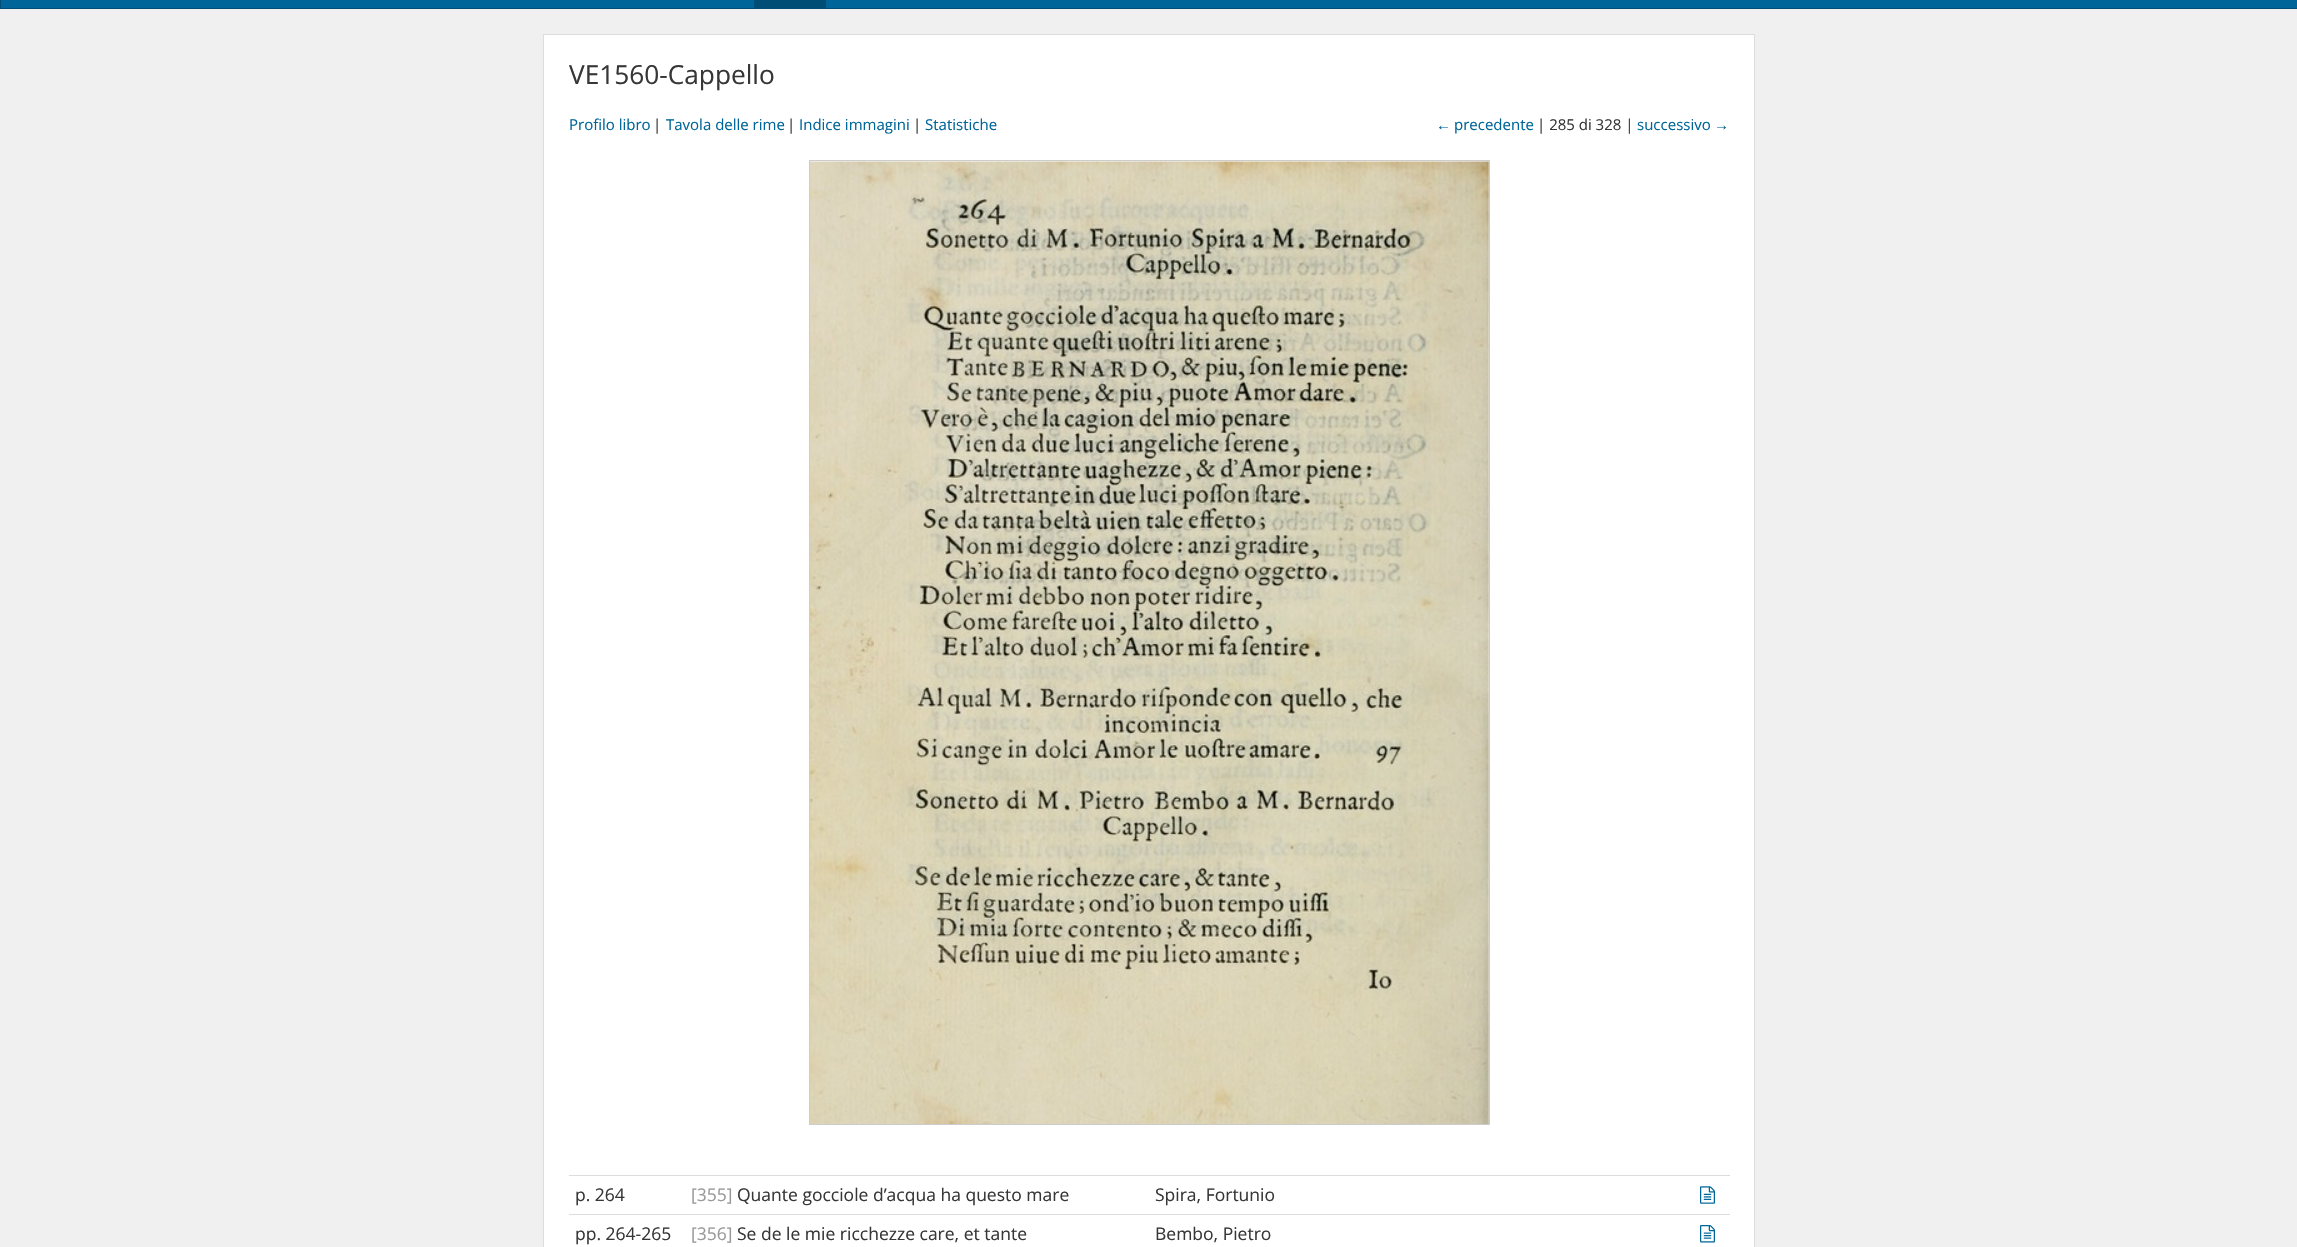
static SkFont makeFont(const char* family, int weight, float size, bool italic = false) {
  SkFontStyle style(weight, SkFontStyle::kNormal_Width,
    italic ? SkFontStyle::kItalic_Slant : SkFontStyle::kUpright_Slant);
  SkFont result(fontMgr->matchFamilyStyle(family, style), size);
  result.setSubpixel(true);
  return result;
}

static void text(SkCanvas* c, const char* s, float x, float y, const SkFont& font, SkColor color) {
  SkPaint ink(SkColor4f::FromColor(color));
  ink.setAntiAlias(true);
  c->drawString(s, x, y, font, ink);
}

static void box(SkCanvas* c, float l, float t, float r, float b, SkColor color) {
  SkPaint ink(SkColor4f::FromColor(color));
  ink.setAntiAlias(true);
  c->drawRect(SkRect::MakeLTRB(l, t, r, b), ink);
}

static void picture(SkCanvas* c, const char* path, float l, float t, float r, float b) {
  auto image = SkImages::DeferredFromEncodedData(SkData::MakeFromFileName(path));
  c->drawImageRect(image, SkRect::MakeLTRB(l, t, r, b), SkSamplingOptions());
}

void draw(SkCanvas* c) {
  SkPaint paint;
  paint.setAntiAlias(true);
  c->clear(0xfff0f0f0);
  paint.setColor(0xff006699);
  c->drawRect(SkRect::MakeLTRB(0.5f, -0.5f, 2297.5f, 8.5f), paint);
  paint.setStyle(SkPaint::kStroke_Style);
  paint.setStrokeWidth(1);
  paint.setColor(0xff004e75);
  c->drawRect(SkRect::MakeLTRB(0.5f, -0.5f, 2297.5f, 8.5f), paint);
  box(c, 754, 0, 826, 8, 0xff004e75);
  paint.setStyle(SkPaint::kFill_Style);
  paint.setColor(0xffffffff);
  c->drawRect(SkRect::MakeLTRB(543.5f, 34.5f, 1754.5f, 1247.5f), paint);
  paint.setStyle(SkPaint::kStroke_Style);
  paint.setColor(0xffdddddd);
  c->drawRect(SkRect::MakeLTRB(543.5f, 34.5f, 1754.5f, 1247.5f), paint);
  SkFont face1 = makeFont("Open Sans", 400, 26.25f);
  text(c, "VE1560-Cappello", 569, 84, face1, 0xff373737);
  SkFont face2 = makeFont("Open Sans", 400, 15);
  text(c, "Profilo libro", 569, 130, face2, 0xff006699);
  text(c, "|", 653, 130, face2, 0xff373737);
  text(c, "Tavola delle rime", 666, 130, face2, 0xff006699);
  text(c, "|", 787, 130, face2, 0xff373737);
  text(c, "Indice immagini", 799, 130, face2, 0xff006699);
  text(c, "|", 913, 130, face2, 0xff373737);
  text(c, "Statistiche", 925, 130, face2, 0xff006699);
  SkFont face3 = makeFont("Liberation Sans", 400, 15);
  text(c, "←", 1436, 130, face3, 0xff006699);
  text(c, "precedente", 1454, 130, face2, 0xff006699);
  text(c, "| 285 di 328 |", 1537, 130, face2, 0xff373737);
  text(c, "successivo", 1637, 130, face2, 0xff006699);
  text(c, "→", 1714, 130, face3, 0xff006699);
  paint.setColor(0xffcccccc);
  c->drawRect(SkRect::MakeLTRB(809.5f, 160.5f, 1489.5f, 1124.5f), paint);
  picture(c, "img_01.png", 810, 161, 1489, 1124);
  box(c, 569, 1175, 1730, 1176, 0xffdddddd);
  picture(c, "img_02.png", 1700, 1186, 1715, 1204);
  SkFont face4 = makeFont("Open Sans", 400, 17.5f);
  text(c, "p. 264", 575, 1201, face4, 0xff373737);
  text(c, "[355]", 691, 1201, face4, 0xff999999);
  text(c, "Quante gocciole d’acqua ha questo mare", 737, 1201, face4, 0xff373737);
  text(c, "Spira, Fortunio", 1155, 1201, face4, 0xff373737);
  box(c, 569, 1214, 1730, 1215, 0xffdddddd);
  picture(c, "img_03.png", 1700, 1225, 1715, 1243);
  text(c, "pp. 264-265", 575, 1240, face4, 0xff373737);
  text(c, "[356]", 691, 1240, face4, 0xff999999);
  text(c, "Se de le mie ricchezze care, et tante", 737, 1240, face4, 0xff373737);
  text(c, "Bembo, Pietro", 1155, 1240, face4, 0xff373737);
}
